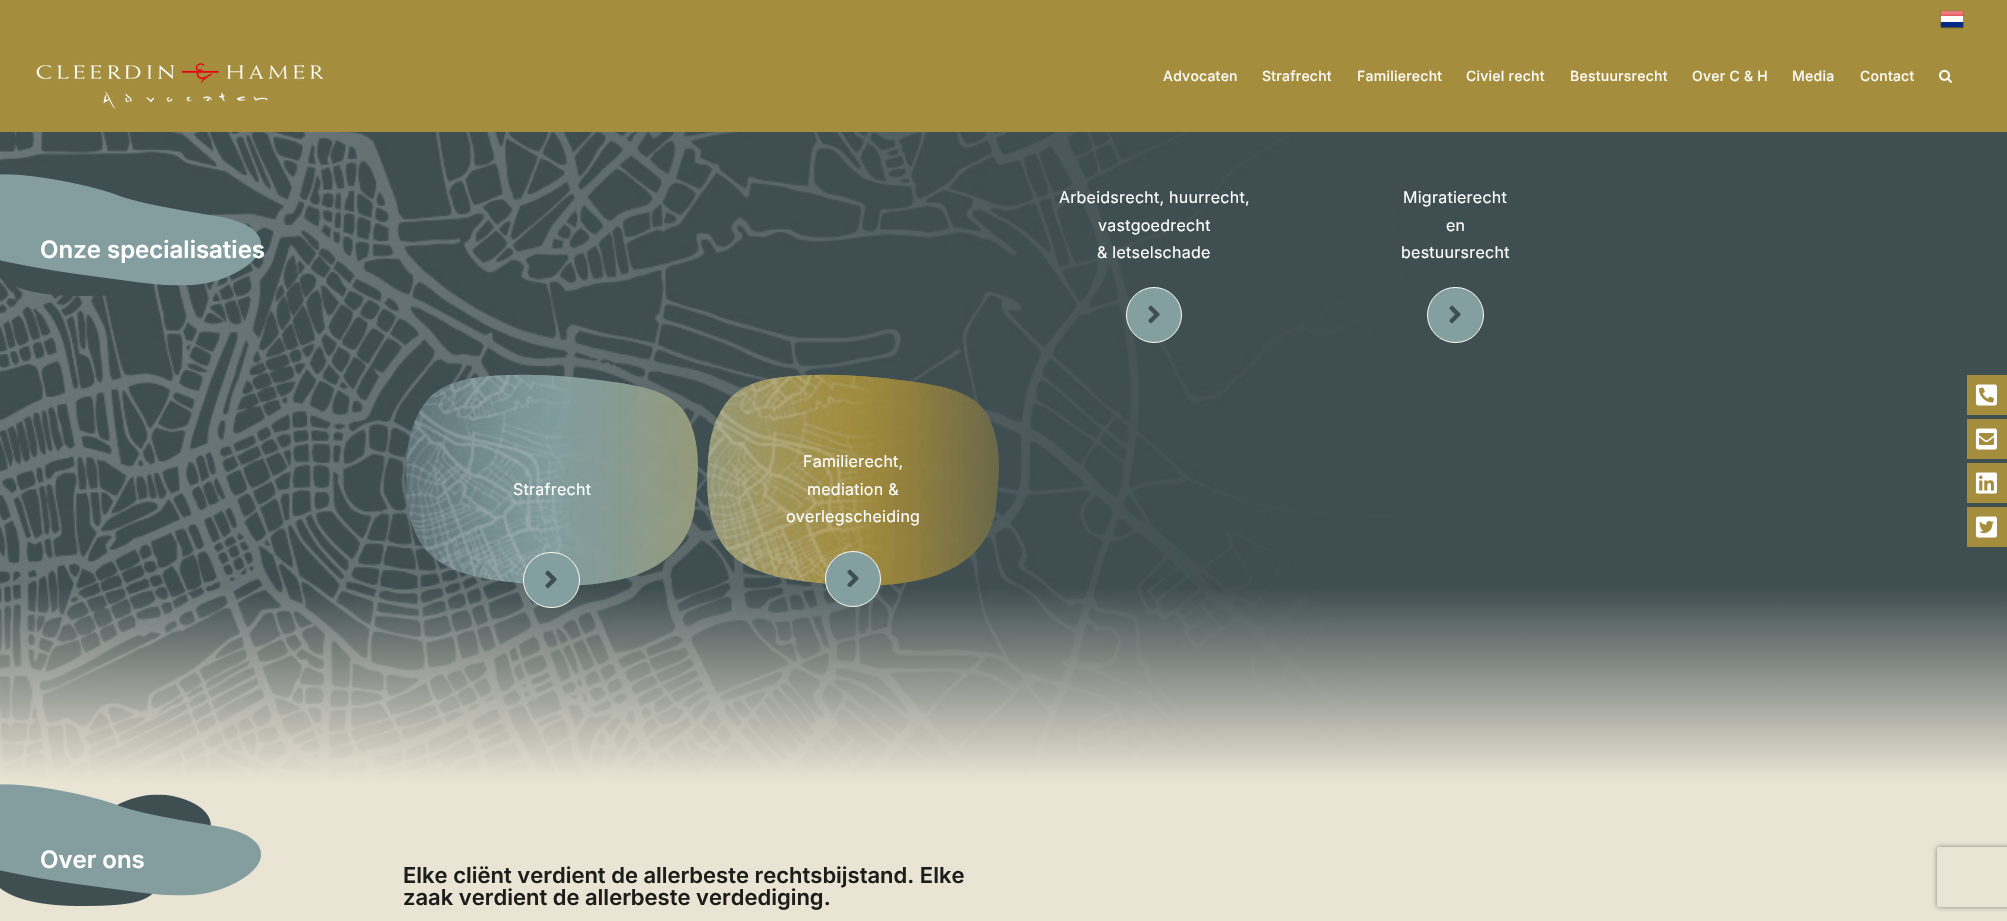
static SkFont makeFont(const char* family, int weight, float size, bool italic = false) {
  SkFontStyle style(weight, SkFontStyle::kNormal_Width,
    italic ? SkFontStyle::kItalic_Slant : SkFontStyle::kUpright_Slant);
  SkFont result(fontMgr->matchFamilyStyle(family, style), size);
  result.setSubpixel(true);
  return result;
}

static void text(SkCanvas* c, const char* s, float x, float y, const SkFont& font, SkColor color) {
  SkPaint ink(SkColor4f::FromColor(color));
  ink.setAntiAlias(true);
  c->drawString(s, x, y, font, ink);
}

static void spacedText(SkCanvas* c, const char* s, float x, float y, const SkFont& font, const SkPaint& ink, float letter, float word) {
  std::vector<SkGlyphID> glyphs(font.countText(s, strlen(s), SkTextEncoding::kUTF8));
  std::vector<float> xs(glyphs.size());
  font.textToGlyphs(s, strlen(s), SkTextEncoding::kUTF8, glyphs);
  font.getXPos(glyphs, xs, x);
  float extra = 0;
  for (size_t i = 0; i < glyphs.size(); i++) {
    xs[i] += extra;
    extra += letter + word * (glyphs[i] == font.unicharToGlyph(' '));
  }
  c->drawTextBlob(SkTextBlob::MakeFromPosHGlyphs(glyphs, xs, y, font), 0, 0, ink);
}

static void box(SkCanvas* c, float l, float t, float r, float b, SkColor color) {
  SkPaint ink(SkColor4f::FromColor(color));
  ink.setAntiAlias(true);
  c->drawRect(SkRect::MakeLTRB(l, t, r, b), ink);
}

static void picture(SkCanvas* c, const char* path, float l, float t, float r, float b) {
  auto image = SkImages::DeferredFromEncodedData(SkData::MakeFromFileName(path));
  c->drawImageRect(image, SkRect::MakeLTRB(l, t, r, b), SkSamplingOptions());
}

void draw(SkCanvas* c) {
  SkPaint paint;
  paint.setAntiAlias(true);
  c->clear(0xffffffff);
  box(c, 0, 0, 2007, 132, 0xffa48e3e);
  picture(c, "img_01.png", 1940, 10, 1964, 29);
  picture(c, "img_02.png", 36, 63, 324, 110);
  SkFont face1 = makeFont("Inter", 500, 14);
  paint.setColor(0xfffbf9f5);
  spacedText(c, "Advocaten", 1163, 81, face1, paint, 0.25f, 0);
  spacedText(c, "Strafrecht", 1262, 81, face1, paint, 0.25f, 0);
  spacedText(c, "Familierecht", 1357, 81, face1, paint, 0.25f, 0);
  spacedText(c, "Civiel recht", 1466, 81, face1, paint, 0.25f, 0);
  spacedText(c, "Bestuursrecht", 1570, 81, face1, paint, 0.25f, 0);
  spacedText(c, "Over C & H", 1692, 81, face1, paint, 0.25f, 0);
  spacedText(c, "Media", 1792, 81, face1, paint, 0.25f, 0);
  spacedText(c, "Contact", 1860, 81, face1, paint, 0.25f, 0);
  picture(c, "img_03.png", 1939, 69, 1952, 83);
  picture(c, "img_04.png", 0, 132, 2007, 782);
  picture(c, "img_05.png", 0, 174, 261, 296);
  SkFont face2 = makeFont("Inter", 600, 24);
  text(c, "Onze specialisaties", 40, 258, face2, 0xffffffff);
  SkFont face3 = makeFont("Inter", 400, 16);
  paint.setColor(0xffffffff);
  spacedText(c, "Arbeidsrecht, huurrecht,", 1059, 203, face3, paint, 0.25f, 0);
  spacedText(c, "vastgoedrecht", 1098, 231, face3, paint, 0.25f, 0);
  spacedText(c, "& letselschade", 1097, 258, face3, paint, 0.25f, 0);
  paint.setColor(0xff849fa0);
  c->drawCircle(1154, 315, 27.5f, paint);
  paint.setStyle(SkPaint::kStroke_Style);
  paint.setStrokeWidth(1);
  paint.setColor(0xfffbf9f5);
  c->drawCircle(1154, 315, 27.5f, paint);
  picture(c, "img_06.png", 1148, 305, 1160, 324);
  paint.setStyle(SkPaint::kFill_Style);
  paint.setColor(0xffffffff);
  spacedText(c, "Migratierecht", 1403, 203, face3, paint, 0.25f, 0);
  spacedText(c, "en", 1446, 231, face3, paint, 0.25f, 0);
  spacedText(c, "bestuursrecht", 1401, 258, face3, paint, 0.25f, 0);
  paint.setColor(0xff849fa0);
  c->drawRoundRect(SkRect::MakeLTRB(1427.5f, 287.5f, 1483.5f, 342.5f), 27.5f, 27.5f, paint);
  paint.setStyle(SkPaint::kStroke_Style);
  paint.setColor(0xfffbf9f5);
  c->drawRoundRect(SkRect::MakeLTRB(1427.5f, 287.5f, 1483.5f, 342.5f), 27.5f, 27.5f, paint);
  picture(c, "img_06.png", 1449, 305, 1461, 324);
  picture(c, "img_07.png", 406, 374, 698, 586);
  picture(c, "img_08.png", 406, 374, 698, 586);
  paint.setStyle(SkPaint::kFill_Style);
  paint.setColor(0xffffffff);
  spacedText(c, "Strafrecht", 513, 495, face3, paint, 0.25f, 0);
  paint.setColor(0xff849fa0);
  c->drawRoundRect(SkRect::MakeLTRB(523.5f, 552.5f, 579.5f, 607.5f), 27.5f, 27.5f, paint);
  paint.setStyle(SkPaint::kStroke_Style);
  paint.setColor(0xfffbf9f5);
  c->drawRoundRect(SkRect::MakeLTRB(523.5f, 552.5f, 579.5f, 607.5f), 27.5f, 27.5f, paint);
  picture(c, "img_06.png", 545, 570, 557, 589);
  picture(c, "img_09.png", 707, 374, 999, 586);
  picture(c, "img_10.png", 707, 374, 999, 586);
  paint.setStyle(SkPaint::kFill_Style);
  paint.setColor(0xffffffff);
  spacedText(c, "Familierecht,", 803, 467, face3, paint, 0.25f, 0);
  spacedText(c, "mediation &", 807, 495, face3, paint, 0.25f, 0);
  spacedText(c, "overlegscheiding", 786, 522, face3, paint, 0.25f, 0);
  paint.setColor(0xff849fa0);
  c->drawCircle(853, 579, 27.5f, paint);
  paint.setStyle(SkPaint::kStroke_Style);
  paint.setColor(0xfffbf9f5);
  c->drawCircle(853, 579, 27.5f, paint);
  picture(c, "img_06.png", 847, 569, 859, 588);
  box(c, 0, 782, 2007, 921, 0xffeae4d4);
  picture(c, "img_11.png", 0, 784, 261, 906);
  text(c, "Over ons", 40, 868, face2, 0xffffffff);
  SkFont face4 = makeFont("Inter", 600, 22);
  text(c, "Elke cliënt verdient de allerbeste rechtsbijstand. Elke", 403, 883, face4, 0xff1d1d1b);
  text(c, "zaak verdient de allerbeste verdediging.", 403, 905, face4, 0xff1d1d1b);
  box(c, 1967, 375, 2007, 415, 0xffa48e3e);
  picture(c, "img_12.png", 1975, 384, 1997, 406);
  box(c, 1967, 419, 2007, 459, 0xffa48e3e);
  picture(c, "img_13.png", 1975, 428, 1997, 450);
  box(c, 1967, 463, 2007, 503, 0xffa48e3e);
  picture(c, "img_14.png", 1975, 472, 1997, 494);
  box(c, 1967, 507, 2007, 547, 0xffa48e3e);
  picture(c, "img_15.png", 1975, 516, 1997, 538);
  c->save();
  c->clipPath(SkPathBuilder(SkPathFillType::kEvenOdd).moveTo(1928, 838).lineTo(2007, 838).lineTo(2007, 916).lineTo(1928, 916).close().moveTo(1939, 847).lineTo(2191, 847).cubicTo(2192, 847, 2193, 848, 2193, 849).lineTo(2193, 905).cubicTo(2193, 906, 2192, 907, 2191, 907).lineTo(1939, 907).cubicTo(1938, 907, 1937, 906, 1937, 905).lineTo(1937, 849).cubicTo(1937, 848, 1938, 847, 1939, 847).close().detach(), true);
  paint.setStyle(SkPaint::kFill_Style);
  paint.setColor(0xff808080);
  paint.setMaskFilter(SkMaskFilter::MakeBlur(kNormal_SkBlurStyle, 2.5f));
  c->drawRoundRect(SkRect::MakeLTRB(1937, 847, 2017, 907), 2, 2, paint);
  paint.setMaskFilter(nullptr);
  c->restore();
}
